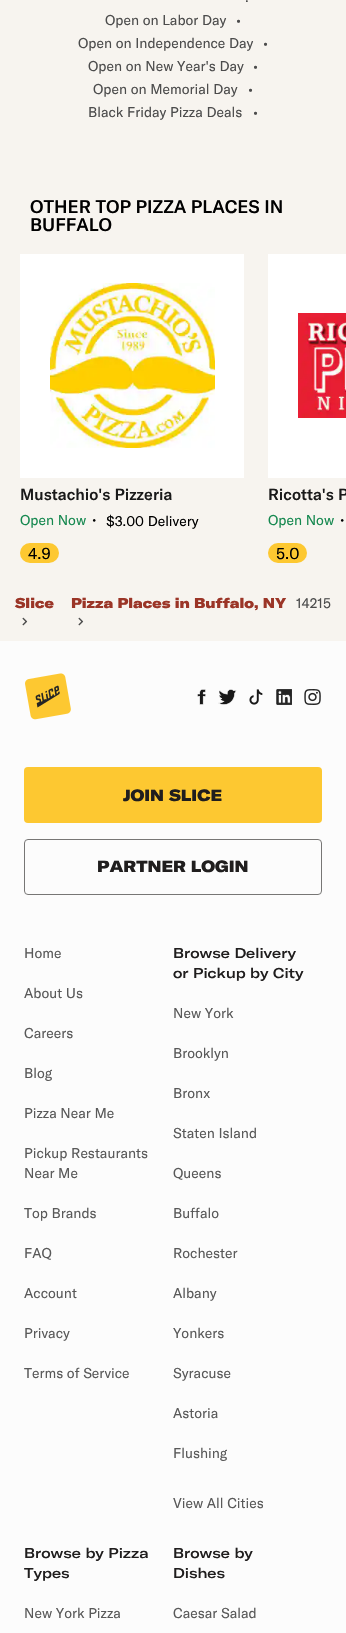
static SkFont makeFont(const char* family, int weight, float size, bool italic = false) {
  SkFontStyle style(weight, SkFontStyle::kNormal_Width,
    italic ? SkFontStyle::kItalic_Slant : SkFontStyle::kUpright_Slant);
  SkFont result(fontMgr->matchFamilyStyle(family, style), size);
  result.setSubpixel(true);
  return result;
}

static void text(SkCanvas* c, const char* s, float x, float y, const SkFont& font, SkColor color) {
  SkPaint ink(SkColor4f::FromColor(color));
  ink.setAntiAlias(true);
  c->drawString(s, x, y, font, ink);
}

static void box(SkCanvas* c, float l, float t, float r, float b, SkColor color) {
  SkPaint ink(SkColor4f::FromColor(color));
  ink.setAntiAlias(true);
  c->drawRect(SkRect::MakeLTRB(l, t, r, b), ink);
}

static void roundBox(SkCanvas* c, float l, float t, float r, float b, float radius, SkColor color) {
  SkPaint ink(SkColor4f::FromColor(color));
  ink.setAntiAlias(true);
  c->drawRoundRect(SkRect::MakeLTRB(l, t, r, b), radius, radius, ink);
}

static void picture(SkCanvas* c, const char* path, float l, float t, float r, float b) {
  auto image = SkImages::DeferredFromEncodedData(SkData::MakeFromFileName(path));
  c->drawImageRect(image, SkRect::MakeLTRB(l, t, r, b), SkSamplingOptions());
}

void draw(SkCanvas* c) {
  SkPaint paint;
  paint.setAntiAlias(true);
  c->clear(0xfff7f4ef);
  SkFont face1 = makeFont("GT America", 400, 14);
  text(c, ".", 245, 2, face1, 0xff4c4c4c);
  text(c, "Open on Labor Day", 105, 25, face1, 0xff4c4c4c);
  text(c, "•", 236, 25, face1, 0xff4c4c4c);
  text(c, "Open on Independence Day", 78, 48, face1, 0xff4c4c4c);
  text(c, "•", 263, 48, face1, 0xff4c4c4c);
  text(c, "Open on New Year's Day", 88, 71, face1, 0xff4c4c4c);
  text(c, "•", 253, 71, face1, 0xff4c4c4c);
  text(c, "Open on Memorial Day", 93, 94, face1, 0xff4c4c4c);
  text(c, "•", 248, 94, face1, 0xff4c4c4c);
  text(c, "Black Friday Pizza Deals", 88, 117, face1, 0xff4c4c4c);
  text(c, "•", 253, 117, face1, 0xff4c4c4c);
  SkFont face2 = makeFont("GT America", 500, 18);
  text(c, "OTHER TOP PIZZA PLACES IN", 30, 213, face2, 0xff000000);
  text(c, "BUFFALO", 30, 231, face2, 0xff000000);
  box(c, 20, 254, 244, 478, 0xffffffff);
  picture(c, "img_01.png", 50, 283, 215, 448);
  SkFont face3 = makeFont("GT America", 500, 16);
  text(c, "Mustachio's Pizzeria", 20, 500, face3, 0xff191919);
  text(c, "Open Now", 20, 525, face1, 0xff15884f);
  SkFont face4 = makeFont("WenQuanYi Zen Hei", 500, 16);
  text(c, "・", 86, 526, face4, 0xff000000);
  text(c, "$3.00 Delivery", 106, 526, face1, 0xff000000);
  roundBox(c, 20, 543, 59, 563, 10, 0xfffdc831);
  SkFont face5 = makeFont("GT America", 400, 16);
  text(c, "4.9", 28, 559, face5, 0xff000000);
  box(c, 268, 254, 346, 478, 0xffffffff);
  picture(c, "img_02.png", 298, 313, 346, 418);
  text(c, "Ricotta's P", 268, 500, face3, 0xff191919);
  text(c, "Open Now", 268, 525, face1, 0xff15884f);
  text(c, "・", 334, 526, face4, 0xff000000);
  roundBox(c, 268, 543, 307, 563, 10, 0xfffdc831);
  text(c, "5.0", 276, 559, face5, 0xff000000);
  SkFont face6 = makeFont("GT America", 900, 14);
  text(c, "Slice", 15, 608, face6, 0xff9b3527);
  picture(c, "img_03.png", 22, 617, 28, 626);
  text(c, "Pizza Places in Buffalo, NY", 71, 608, face6, 0xff9b3527);
  picture(c, "img_03.png", 78, 617, 84, 626);
  text(c, "14215", 296, 608, face1, 0xff4c4c4c);
  box(c, 0, 641, 346, 1633, 0xfffcfcfc);
  picture(c, "img_04.png", 25, 673, 71, 720);
  picture(c, "img_05.png", 197, 689, 206, 705);
  picture(c, "img_06.png", 218, 689, 237, 705);
  picture(c, "img_07.png", 249, 689, 263, 705);
  picture(c, "img_08.png", 276, 689, 292, 705);
  picture(c, "img_09.png", 304, 689, 321, 705);
  roundBox(c, 24, 767, 322, 823, 4, 0xfffdc831);
  SkFont face7 = makeFont("GT America", 900, 16);
  text(c, "JOIN SLICE", 123, 801, face7, 0xff201e1e);
  paint.setStyle(SkPaint::kStroke_Style);
  paint.setStrokeWidth(1);
  paint.setColor(0xff777675);
  c->drawRoundRect(SkRect::MakeLTRB(24.5f, 839.5f, 321.5f, 894.5f), 3.5f, 3.5f, paint);
  text(c, "PARTNER LOGIN", 97, 872, face7, 0xff201e1e);
  text(c, "Home", 24, 958, face1, 0xff595959);
  text(c, "About Us", 24, 998, face1, 0xff595959);
  text(c, "Careers", 24, 1038, face1, 0xff595959);
  text(c, "Blog", 24, 1078, face1, 0xff595959);
  text(c, "Pizza Near Me", 24, 1118, face1, 0xff595959);
  text(c, "Pickup Restaurants", 24, 1158, face1, 0xff595959);
  text(c, "Near Me", 24, 1178, face1, 0xff595959);
  text(c, "Top Brands", 24, 1218, face1, 0xff595959);
  text(c, "FAQ", 24, 1258, face1, 0xff595959);
  text(c, "Account", 24, 1298, face1, 0xff595959);
  text(c, "Privacy", 24, 1338, face1, 0xff595959);
  text(c, "Terms of Service", 24, 1378, face1, 0xff595959);
  SkFont face8 = makeFont("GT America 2", 500, 14);
  text(c, "Browse Delivery", 173, 958, face8, 0xff201e1e);
  text(c, "or Pickup by City", 173, 978, face8, 0xff201e1e);
  text(c, "New York", 173, 1018, face1, 0xff595959);
  text(c, "Brooklyn", 173, 1058, face1, 0xff595959);
  text(c, "Bronx", 173, 1098, face1, 0xff595959);
  text(c, "Staten Island", 173, 1138, face1, 0xff595959);
  text(c, "Queens", 173, 1178, face1, 0xff595959);
  text(c, "Buffalo", 173, 1218, face1, 0xff595959);
  text(c, "Rochester", 173, 1258, face1, 0xff595959);
  text(c, "Albany", 173, 1298, face1, 0xff595959);
  text(c, "Yonkers", 173, 1338, face1, 0xff595959);
  text(c, "Syracuse", 173, 1378, face1, 0xff595959);
  text(c, "Astoria", 173, 1418, face1, 0xff595959);
  text(c, "Flushing", 173, 1458, face1, 0xff595959);
  text(c, "View All Cities", 173, 1508, face1, 0xff595959);
  text(c, "Browse by Pizza", 24, 1558, face8, 0xff201e1e);
  text(c, "Types", 24, 1578, face8, 0xff201e1e);
  text(c, "New York Pizza", 24, 1618, face1, 0xff595959);
  text(c, "Browse by", 173, 1558, face8, 0xff201e1e);
  text(c, "Dishes", 173, 1578, face8, 0xff201e1e);
  text(c, "Caesar Salad", 173, 1618, face1, 0xff595959);
}
